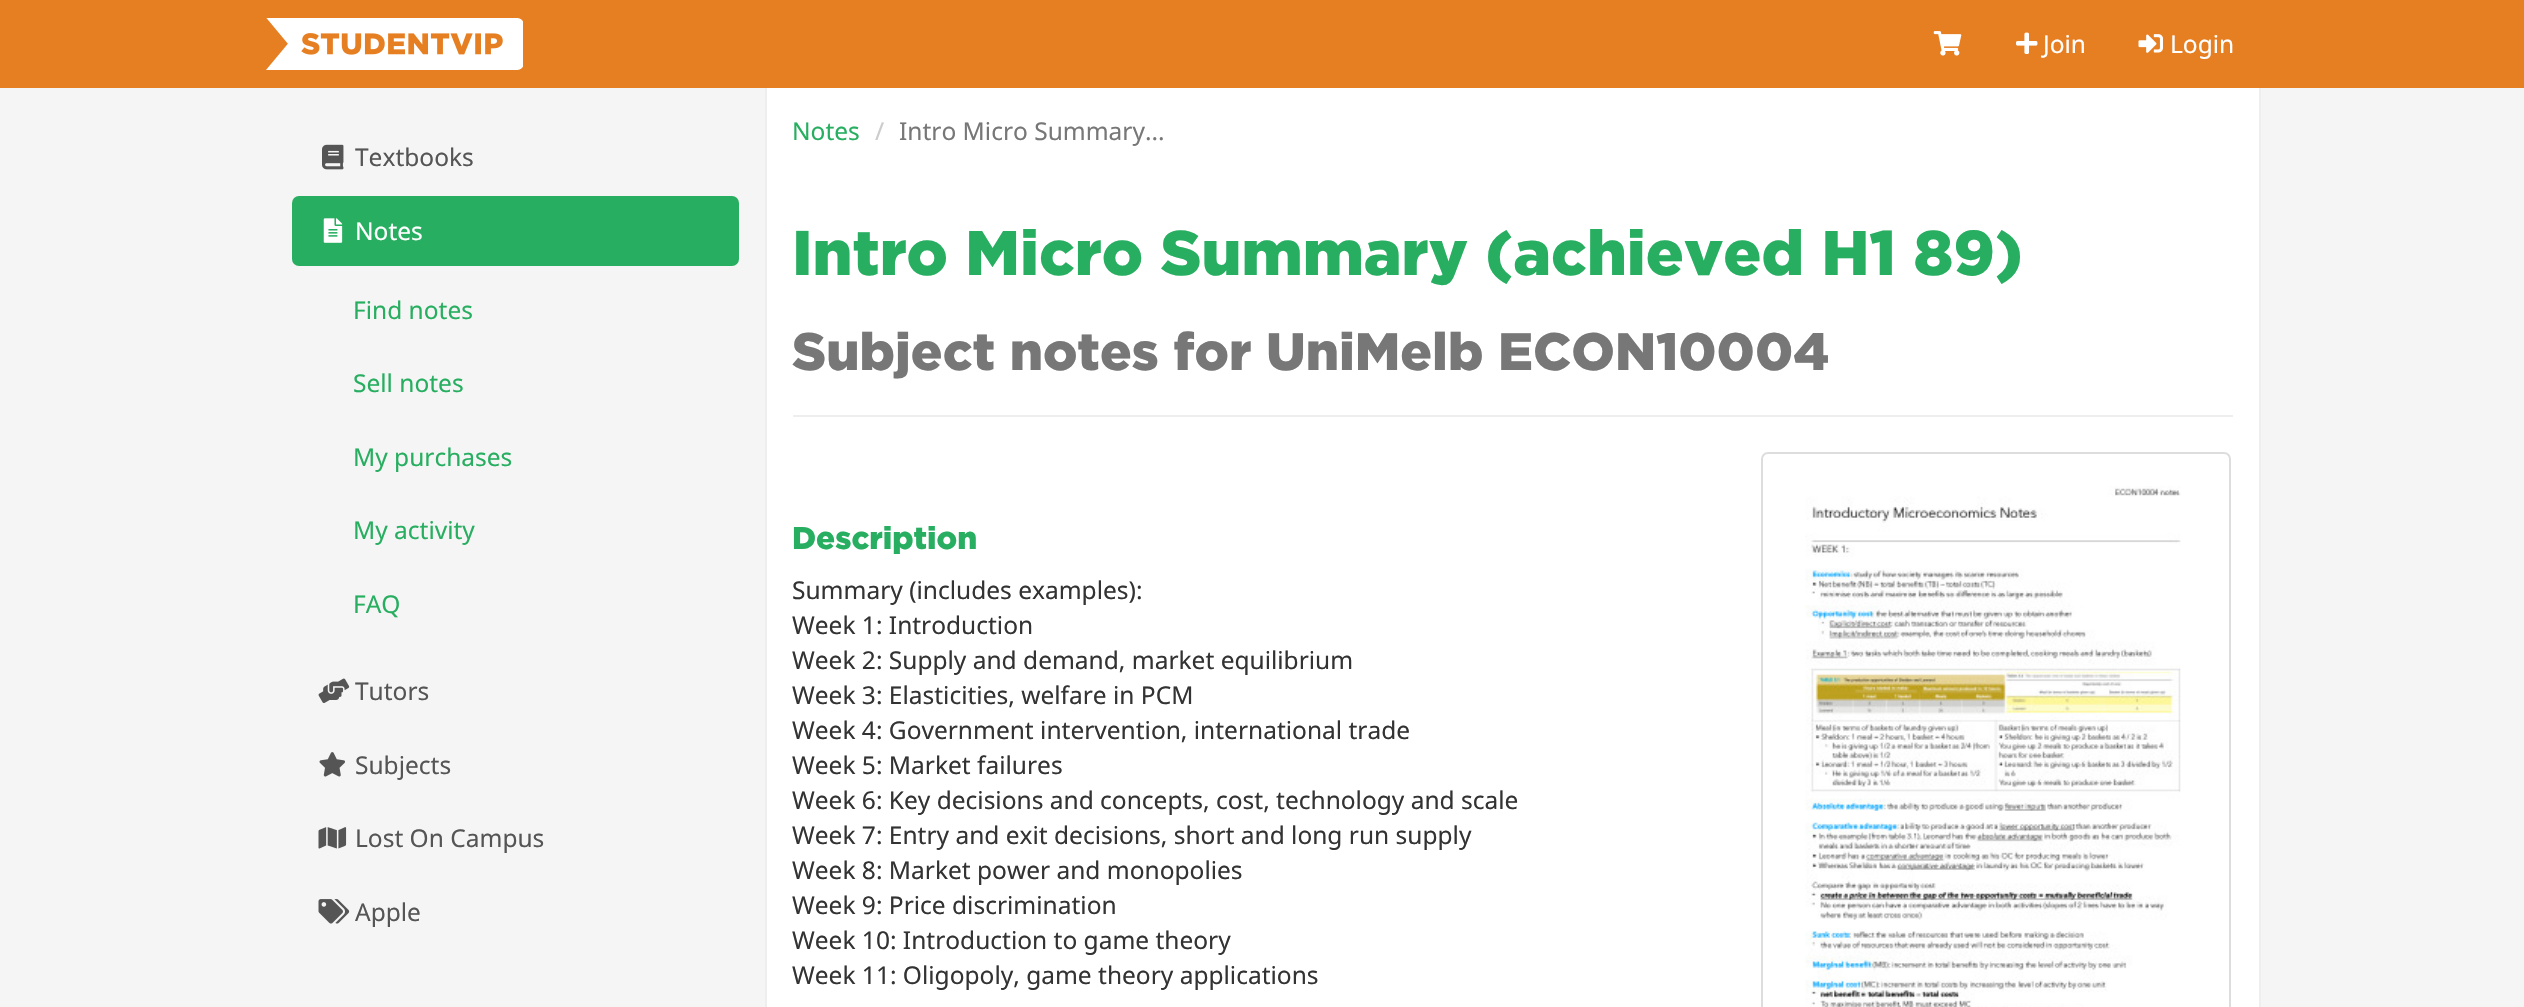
static SkFont makeFont(const char* family, int weight, float size, bool italic = false) {
  SkFontStyle style(weight, SkFontStyle::kNormal_Width,
    italic ? SkFontStyle::kItalic_Slant : SkFontStyle::kUpright_Slant);
  SkFont result(fontMgr->matchFamilyStyle(family, style), size);
  result.setSubpixel(true);
  return result;
}

static void text(SkCanvas* c, const char* s, float x, float y, const SkFont& font, SkColor color) {
  SkPaint ink(SkColor4f::FromColor(color));
  ink.setAntiAlias(true);
  c->drawString(s, x, y, font, ink);
}

static void box(SkCanvas* c, float l, float t, float r, float b, SkColor color) {
  SkPaint ink(SkColor4f::FromColor(color));
  ink.setAntiAlias(true);
  c->drawRect(SkRect::MakeLTRB(l, t, r, b), ink);
}

static void roundBox(SkCanvas* c, float l, float t, float r, float b, float radius, SkColor color) {
  SkPaint ink(SkColor4f::FromColor(color));
  ink.setAntiAlias(true);
  c->drawRoundRect(SkRect::MakeLTRB(l, t, r, b), radius, radius, ink);
}

static void picture(SkCanvas* c, const char* path, float l, float t, float r, float b) {
  auto image = SkImages::DeferredFromEncodedData(SkData::MakeFromFileName(path));
  c->drawImageRect(image, SkRect::MakeLTRB(l, t, r, b), SkSamplingOptions());
}

void draw(SkCanvas* c) {
  SkPaint paint;
  paint.setAntiAlias(true);
  c->clear(0xfff5f5f5);
  box(c, 0, 0, 2524, 88, 0xffe67e22);
  picture(c, "img_01.png", 266, 18, 523, 70);
  picture(c, "img_02.png", 1933, 31, 1962, 56);
  picture(c, "img_03.png", 2016, 32, 2038, 54);
  SkFont face1 = makeFont("Noto Sans", 400, 24.5f);
  text(c, "Join", 2043, 53, face1, 0xffffffff);
  picture(c, "img_04.png", 2138, 34, 2163, 53);
  text(c, "Login", 2170, 53, face1, 0xffffffff);
  picture(c, "img_05.png", 322, 144, 344, 170);
  text(c, "Textbooks", 355, 166, face1, 0xff555555);
  roundBox(c, 292, 196, 739, 266, 7, 0xff27ae60);
  picture(c, "img_06.png", 323, 218, 343, 243);
  text(c, "Notes", 355, 240, face1, 0xffffffff);
  text(c, "Find notes", 353, 319, face1, 0xff27ae60);
  text(c, "Sell notes", 353, 392, face1, 0xff27ae60);
  text(c, "My purchases", 353, 466, face1, 0xff27ae60);
  text(c, "My activity", 353, 539, face1, 0xff27ae60);
  text(c, "FAQ", 353, 613, face1, 0xff27ae60);
  picture(c, "img_07.png", 318, 678, 350, 703);
  text(c, "Tutors", 355, 700, face1, 0xff555555);
  picture(c, "img_08.png", 319, 752, 345, 777);
  text(c, "Subjects", 355, 774, face1, 0xff555555);
  picture(c, "img_09.png", 318, 827, 347, 849);
  text(c, "Lost On Campus", 355, 847, face1, 0xff555555);
  picture(c, "img_10.png", 318, 899, 350, 924);
  text(c, "Apple", 355, 921, face1, 0xff555555);
  box(c, 767, 88, 2259, 1007, 0xffffffff);
  box(c, 2259, 88, 2261, 1007, 0xffeeeeee);
  box(c, 765, 88, 767, 1007, 0xffeeeeee);
  text(c, "Notes", 792, 140, face1, 0xff27ae60);
  text(c, "/", 875, 140, face1, 0xffcccccc);
  text(c, "Intro Micro Summary...", 899, 140, face1, 0xff777777);
  box(c, 793, 415, 2233, 417, 0xffeeeeee);
  SkFont face2 = makeFont("Gotham", 900, 63);
  text(c, "Intro Micro Summary (achieved H1 89)", 792, 275, face2, 0xff27ae60);
  SkFont face3 = makeFont("Gotham", 900, 52.5f);
  text(c, "Subject notes for UniMelb ECON10004", 792, 370, face3, 0xff777777);
  SkFont face4 = makeFont("Gotham", 900, 31.5f);
  text(c, "Description", 792, 549, face4, 0xff27ae60);
  text(c, "Summary (includes examples):", 792, 599, face1, 0xff333333);
  text(c, "Week 1: Introduction", 792, 634, face1, 0xff333333);
  text(c, "Week 2: Supply and demand, market equilibrium", 792, 669, face1, 0xff333333);
  text(c, "Week 3: Elasticities, welfare in PCM", 792, 704, face1, 0xff333333);
  text(c, "Week 4: Government intervention, international trade", 792, 739, face1, 0xff333333);
  text(c, "Week 5: Market failures", 792, 774, face1, 0xff333333);
  text(c, "Week 6: Key decisions and concepts, cost, technology and scale", 792, 809, face1, 0xff333333);
  text(c, "Week 7: Entry and exit decisions, short and long run supply", 792, 844, face1, 0xff333333);
  text(c, "Week 8: Market power and monopolies", 792, 879, face1, 0xff333333);
  text(c, "Week 9: Price discrimination", 792, 914, face1, 0xff333333);
  text(c, "Week 10: Introduction to game theory", 792, 949, face1, 0xff333333);
  text(c, "Week 11: Oligopoly, game theory applications", 792, 984, face1, 0xff333333);
  paint.setStyle(SkPaint::kStroke_Style);
  paint.setStrokeWidth(2);
  paint.setColor(0xffdddddd);
  c->drawRoundRect(SkRect::MakeLTRB(1762, 453, 2230, 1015), 6, 6, paint);
  picture(c, "img_11.png", 1805, 486, 2181, 1007);
}
